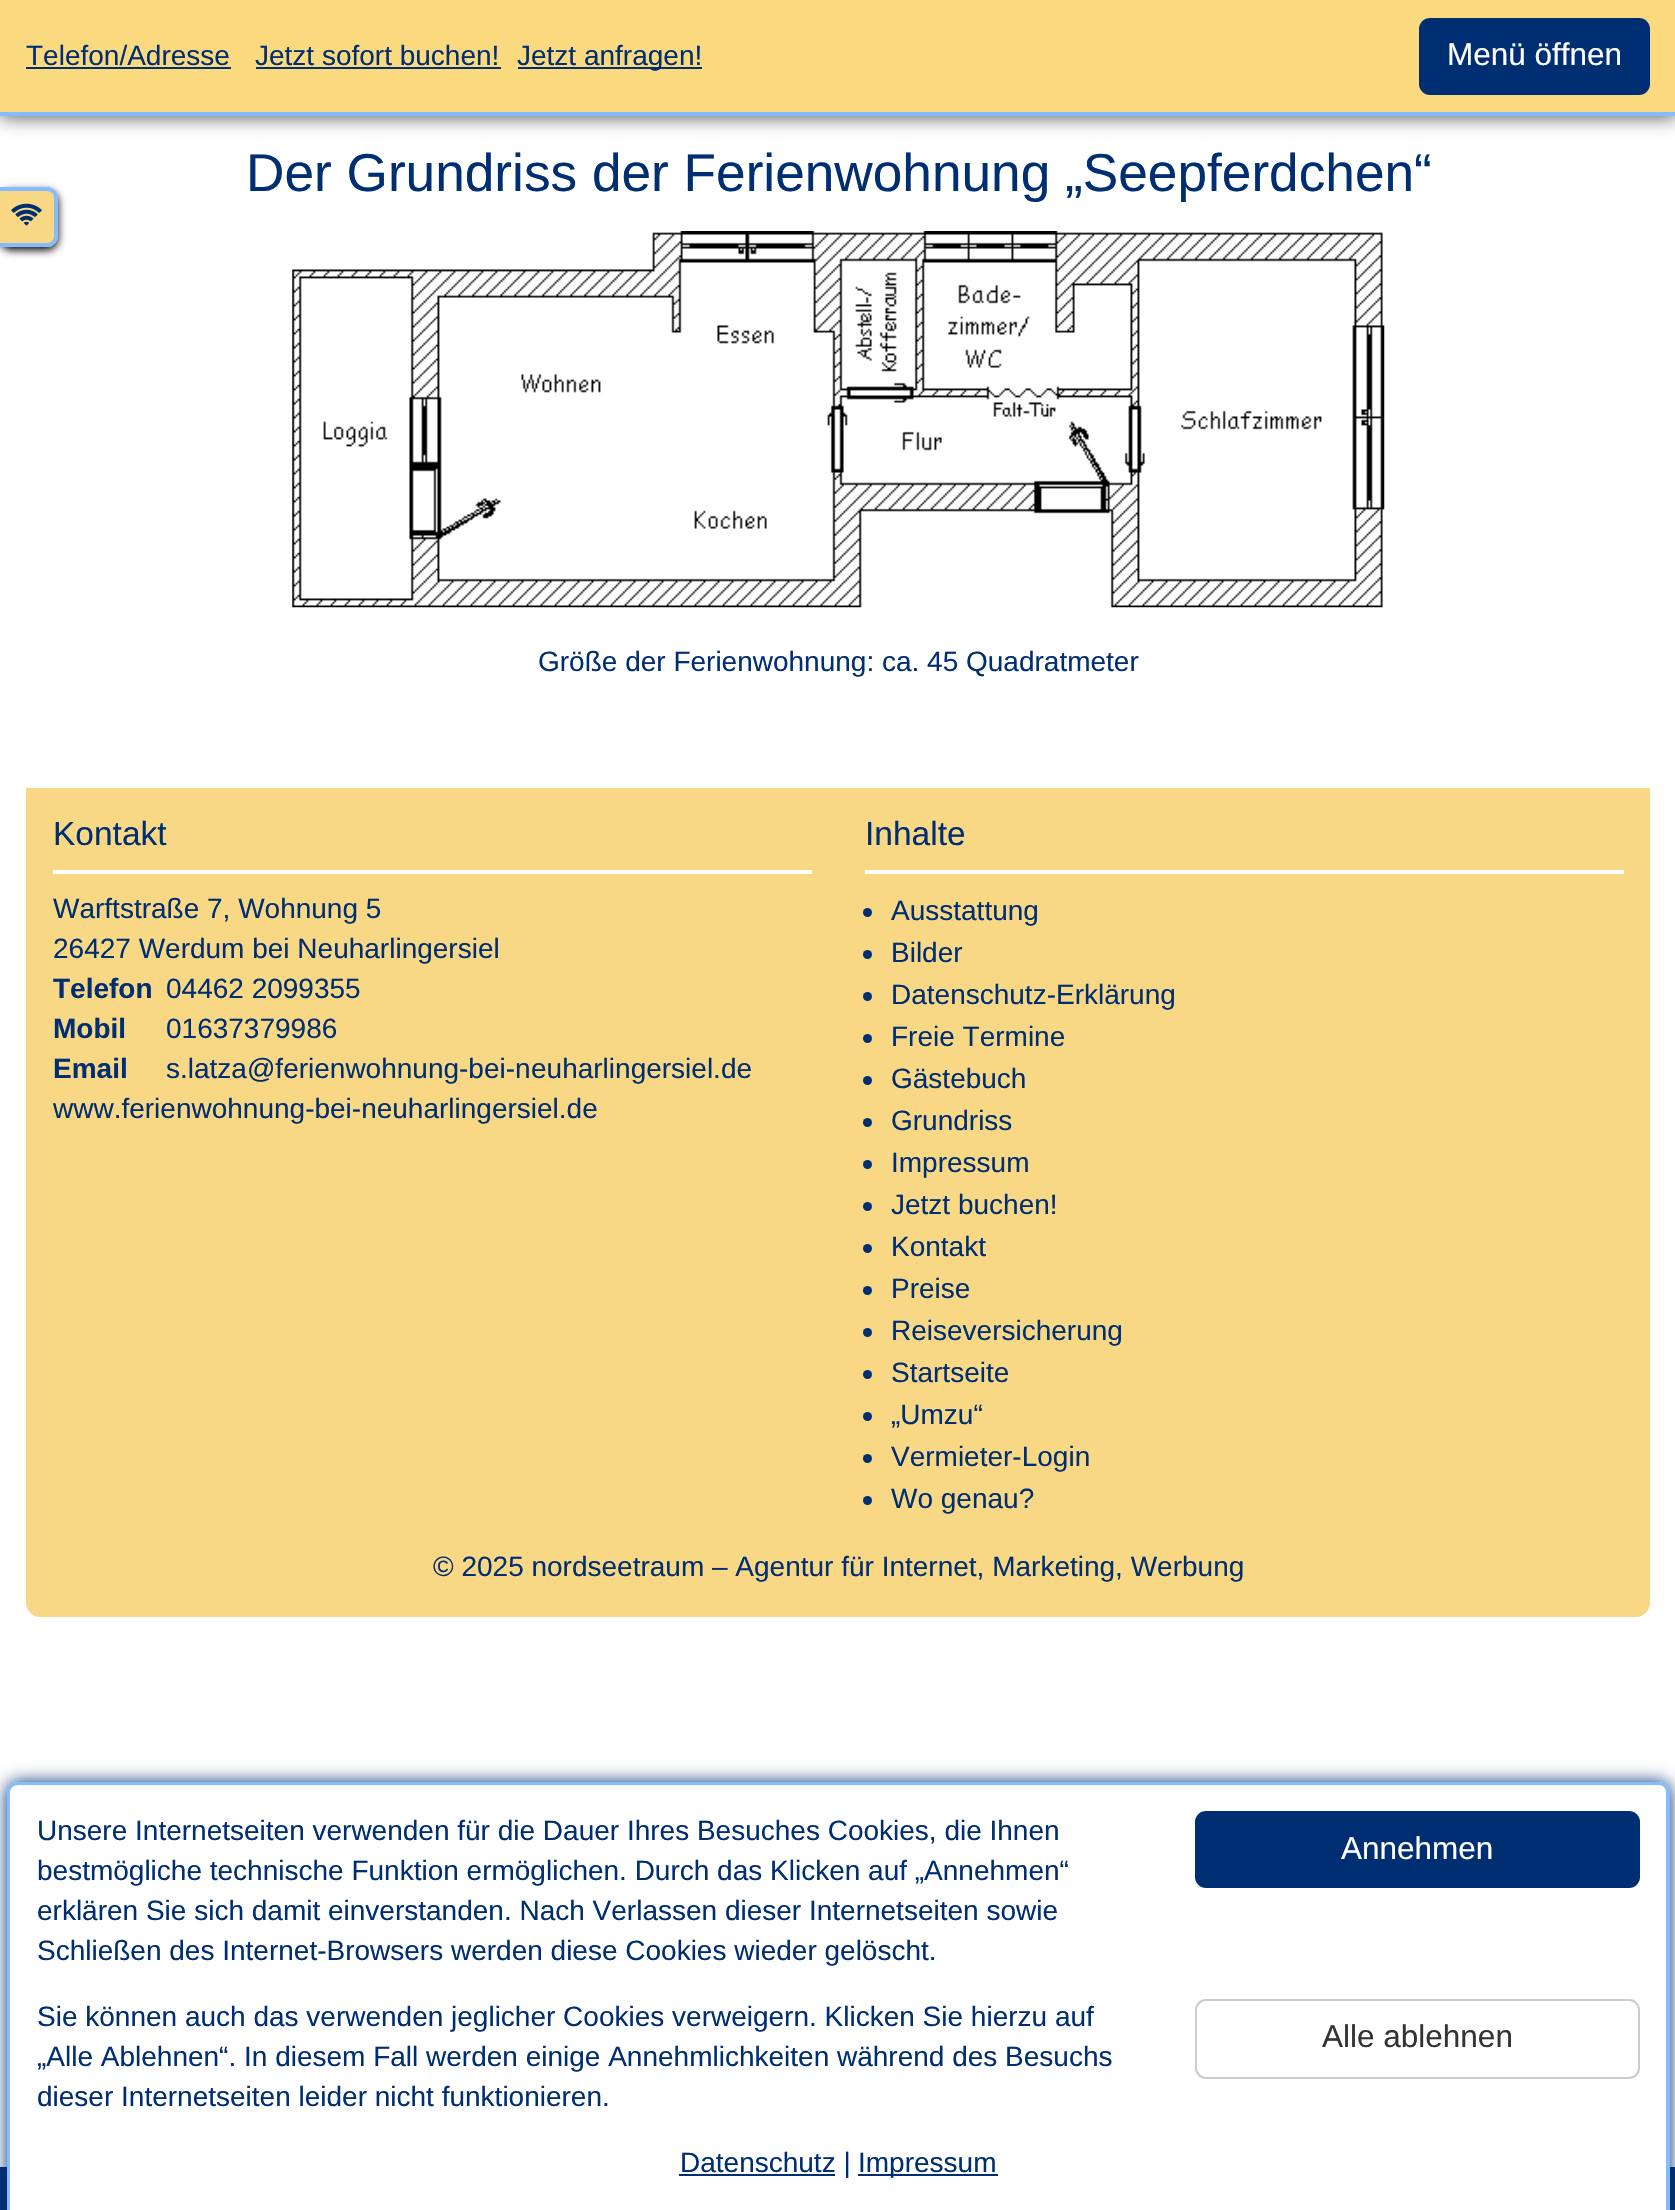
static SkFont makeFont(const char* family, int weight, float size, bool italic = false) {
  SkFontStyle style(weight, SkFontStyle::kNormal_Width,
    italic ? SkFontStyle::kItalic_Slant : SkFontStyle::kUpright_Slant);
  SkFont result(fontMgr->matchFamilyStyle(family, style), size);
  result.setSubpixel(true);
  return result;
}

static void text(SkCanvas* c, const char* s, float x, float y, const SkFont& font, SkColor color) {
  SkPaint ink(SkColor4f::FromColor(color));
  ink.setAntiAlias(true);
  c->drawString(s, x, y, font, ink);
}

static void box(SkCanvas* c, float l, float t, float r, float b, SkColor color) {
  SkPaint ink(SkColor4f::FromColor(color));
  ink.setAntiAlias(true);
  c->drawRect(SkRect::MakeLTRB(l, t, r, b), ink);
}

static void roundBox(SkCanvas* c, float l, float t, float r, float b, float radius, SkColor color) {
  SkPaint ink(SkColor4f::FromColor(color));
  ink.setAntiAlias(true);
  c->drawRoundRect(SkRect::MakeLTRB(l, t, r, b), radius, radius, ink);
}

static void picture(SkCanvas* c, const char* path, float l, float t, float r, float b) {
  auto image = SkImages::DeferredFromEncodedData(SkData::MakeFromFileName(path));
  c->drawImageRect(image, SkRect::MakeLTRB(l, t, r, b), SkSamplingOptions());
}

void draw(SkCanvas* c) {
  SkPaint paint;
  paint.setAntiAlias(true);
  c->clear(0xffffffff);
  paint.setColor(0xff555555);
  paint.setMaskFilter(SkMaskFilter::MakeBlur(kNormal_SkBlurStyle, 9));
  c->drawRect(SkRect::MakeLTRB(0, 2, 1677, 117), paint);
  paint.setMaskFilter(nullptr);
  box(c, 0, 0, 1675, 112, 0xfffad97f);
  box(c, 0, 112, 1675, 116, 0xff84bdff);
  SkFont face1 = makeFont("Liberation Sans", 400, 28);
  text(c, "Telefon/Adresse", 26, 65, face1, 0xff002e72);
  box(c, 26, 67, 231, 69, 0xff002e72);
  text(c, "Jetzt sofort buchen!", 255, 65, face1, 0xff002e72);
  box(c, 256, 67, 501, 69, 0xff002e72);
  box(c, 518, 67, 702, 69, 0xff002e72);
  text(c, "Jetzt anfragen!", 517, 65, face1, 0xff002e72);
  roundBox(c, 1419, 18, 1650, 95, 11, 0xff002e72);
  SkFont face2 = makeFont("Liberation Sans", 400, 31.5f);
  text(c, "Menü öffnen", 1447, 65, face2, 0xffffffff);
  SkFont face3 = makeFont("Liberation Sans", 400, 53.2f);
  text(c, "Der Grundriss der Ferienwohnung „Seepferdchen“", 246, 191, face3, 0xff002e72);
  picture(c, "img_01.png", 292, 231, 1385, 608);
  text(c, "Größe der Ferienwohnung: ca. 45 Quadratmeter", 538, 671, face1, 0xff002e72);
  paint.setColor(0xfff9d885);
  c->drawPath(SkPathBuilder().moveTo(26, 788).lineTo(1650, 788).lineTo(1650, 1603).cubicTo(1650, 1610.5f, 1643.5f, 1617, 1636, 1617).lineTo(40, 1617).cubicTo(32.5f, 1617, 26, 1610.5f, 26, 1603).close().detach(), paint);
  box(c, 53, 870, 812, 874, 0xffffffff);
  SkFont face4 = makeFont("Liberation Sans", 400, 33.5f);
  text(c, "Kontakt", 53, 845, face4, 0xff002e72);
  text(c, "Warftstraße 7, Wohnung 5", 53, 918, face1, 0xff002e72);
  text(c, "26427 Werdum bei Neuharlingersiel", 53, 958, face1, 0xff002e72);
  SkFont face5 = makeFont("Liberation Sans", 700, 28);
  text(c, "Telefon", 53, 998, face5, 0xff002e72);
  text(c, "04462 2099355", 166, 998, face1, 0xff002e72);
  text(c, "Mobil", 53, 1038, face5, 0xff002e72);
  text(c, "01637379986", 166, 1038, face1, 0xff002e72);
  text(c, "Email", 53, 1078, face5, 0xff002e72);
  text(c, "s.latza@ferienwohnung-bei-n", 166, 1078, face1, 0xff002e72);
  text(c, "euharlingersiel.de", 531, 1078, face1, 0xff002e72);
  text(c, "www.ferienwohnung-bei-neuharlingersiel.de", 53, 1118, face1, 0xff002e72);
  box(c, 865, 870, 1624, 874, 0xffffffff);
  text(c, "Inhalte", 865, 845, face4, 0xff002e72);
  paint.setColor(0xff002e72);
  c->drawCircle(867.5f, 912.5f, 4.5f, paint);
  text(c, "Ausstattung", 891, 920, face1, 0xff002e72);
  c->drawCircle(867.5f, 954.5f, 4.5f, paint);
  text(c, "Bilder", 891, 962, face1, 0xff002e72);
  c->drawCircle(867.5f, 996.5f, 4.5f, paint);
  text(c, "Datenschutz-Erklärung", 891, 1004, face1, 0xff002e72);
  c->drawCircle(867.5f, 1038.5f, 4.5f, paint);
  text(c, "Freie Termine", 891, 1046, face1, 0xff002e72);
  c->drawCircle(867.5f, 1080.5f, 4.5f, paint);
  text(c, "Gästebuch", 891, 1088, face1, 0xff002e72);
  c->drawCircle(867.5f, 1122.5f, 4.5f, paint);
  text(c, "Grundriss", 891, 1130, face1, 0xff002e72);
  c->drawCircle(867.5f, 1164.5f, 4.5f, paint);
  text(c, "Impressum", 891, 1172, face1, 0xff002e72);
  c->drawCircle(867.5f, 1206.5f, 4.5f, paint);
  text(c, "Jetzt buchen!", 891, 1214, face1, 0xff002e72);
  c->drawCircle(867.5f, 1248.5f, 4.5f, paint);
  text(c, "Kontakt", 891, 1256, face1, 0xff002e72);
  c->drawCircle(867.5f, 1290.5f, 4.5f, paint);
  text(c, "Preise", 891, 1298, face1, 0xff002e72);
  c->drawCircle(867.5f, 1332.5f, 4.5f, paint);
  text(c, "Reiseversicherung", 891, 1340, face1, 0xff002e72);
  c->drawCircle(867.5f, 1374.5f, 4.5f, paint);
  text(c, "Startseite", 891, 1382, face1, 0xff002e72);
  c->drawCircle(867.5f, 1416.5f, 4.5f, paint);
  text(c, "„Umzu“", 891, 1424, face1, 0xff002e72);
  c->drawCircle(867.5f, 1458.5f, 4.5f, paint);
  text(c, "Vermieter-Login", 891, 1466, face1, 0xff002e72);
  c->drawCircle(867.5f, 1500.5f, 4.5f, paint);
  text(c, "Wo genau?", 891, 1508, face1, 0xff002e72);
  text(c, "© 2025 nordseetraum – Agentur für Internet, Marketing, Werbung", 433, 1576, face1, 0xff002e72);
  paint.setColor(0xff000000);
  paint.setMaskFilter(SkMaskFilter::MakeBlur(kNormal_SkBlurStyle, 4.5f));
  c->drawRoundRect(SkRect::MakeLTRB(0, 191, 58, 250), 11, 11, paint);
  paint.setMaskFilter(nullptr);
  paint.setColor(0xfff9d885);
  c->drawPath(SkPathBuilder().moveTo(0, 187).lineTo(47, 187).cubicTo(53, 187, 58, 192, 58, 198).lineTo(58, 236).cubicTo(58, 242, 53, 247, 47, 247).lineTo(0, 247).close().detach(), paint);
  paint.setColor(0xff84bdff);
  c->drawPath(SkPathBuilder(SkPathFillType::kEvenOdd).moveTo(0, 187).lineTo(47, 187).cubicTo(53, 187, 58, 192, 58, 198).lineTo(58, 236).cubicTo(58, 242, 53, 247, 47, 247).lineTo(0, 247).close().moveTo(0, 191).lineTo(47, 191).cubicTo(51, 191, 54, 194, 54, 198).lineTo(54, 236).cubicTo(54, 240, 51, 243, 47, 243).lineTo(0, 243).close().detach(), paint);
  picture(c, "img_02.png", 11, 203, 42, 226);
  box(c, 0, 2167, 7, 2210, 0xff002e72);
  box(c, 1670, 2167, 1675, 2210, 0xff002e72);
  paint.setColor(0xff002e72);
  paint.setMaskFilter(SkMaskFilter::MakeBlur(kNormal_SkBlurStyle, 9));
  c->drawRoundRect(SkRect::MakeLTRB(7, 1782, 1670, 2210), 11, 11, paint);
  paint.setMaskFilter(nullptr);
  paint.setColor(0xffffffff);
  c->drawPath(SkPathBuilder().moveTo(18, 1782).lineTo(1659, 1782).cubicTo(1665, 1782, 1670, 1787, 1670, 1793).lineTo(1670, 2210).lineTo(7, 2210).lineTo(7, 1793).cubicTo(7, 1787, 12, 1782, 18, 1782).close().detach(), paint);
  paint.setColor(0xff84bdff);
  c->drawPath(SkPathBuilder(SkPathFillType::kEvenOdd).moveTo(18, 1782).lineTo(1659, 1782).cubicTo(1665, 1782, 1670, 1786, 1670, 1792).lineTo(1670, 2210).lineTo(7, 2210).lineTo(7, 1792).cubicTo(7, 1786, 12, 1782, 18, 1782).close().moveTo(18, 1785).lineTo(1659, 1785).cubicTo(1663, 1785, 1666, 1788, 1666, 1792).lineTo(1666, 2210).lineTo(10, 2210).lineTo(10, 1792).cubicTo(10, 1788, 14, 1785, 18, 1785).close().detach(), paint);
  text(c, "Unsere Internetseiten verwenden für die Dauer Ihres Besuches Cookies, die Ihnen", 37, 1840, face1, 0xff002e72);
  text(c, "bestmögliche technische Funktion ermöglichen. Durch das Klicken auf „Annehmen“", 37, 1880, face1, 0xff002e72);
  text(c, "erklären Sie sich damit einverstanden. Nach Verlassen dieser Internetseiten sowie", 37, 1920, face1, 0xff002e72);
  text(c, "Schließen des Internet-Browsers werden diese Cookies wieder gelöscht.", 37, 1960, face1, 0xff002e72);
  roundBox(c, 1195, 1811, 1640, 1888, 11, 0xff002e72);
  text(c, "Annehmen", 1341, 1859, face2, 0xffffffff);
  text(c, "Sie können auch das verwenden jeglicher Cookies verweigern. Klicken Sie hierzu auf", 37, 2026, face1, 0xff002e72);
  text(c, "„Alle Ablehnen“. In diesem Fall werden einige Annehmlichkeiten während des Besuchs", 37, 2066, face1, 0xff002e72);
  text(c, "dieser Internetseiten leider nicht funktionieren.", 37, 2106, face1, 0xff002e72);
  paint.setStyle(SkPaint::kStroke_Style);
  paint.setStrokeWidth(2);
  paint.setColor(0xffcccccc);
  c->drawRoundRect(SkRect::MakeLTRB(1196, 2000, 1639, 2078), 10, 10, paint);
  text(c, "Alle ablehnen", 1322, 2047, face2, 0xff333333);
  box(c, 679, 2174, 835, 2176, 0xff002e72);
  text(c, "Datenschutz |", 680, 2172, face1, 0xff002e72);
  box(c, 858, 2174, 998, 2176, 0xff002e72);
  text(c, "Impressum", 858, 2172, face1, 0xff002e72);
}
